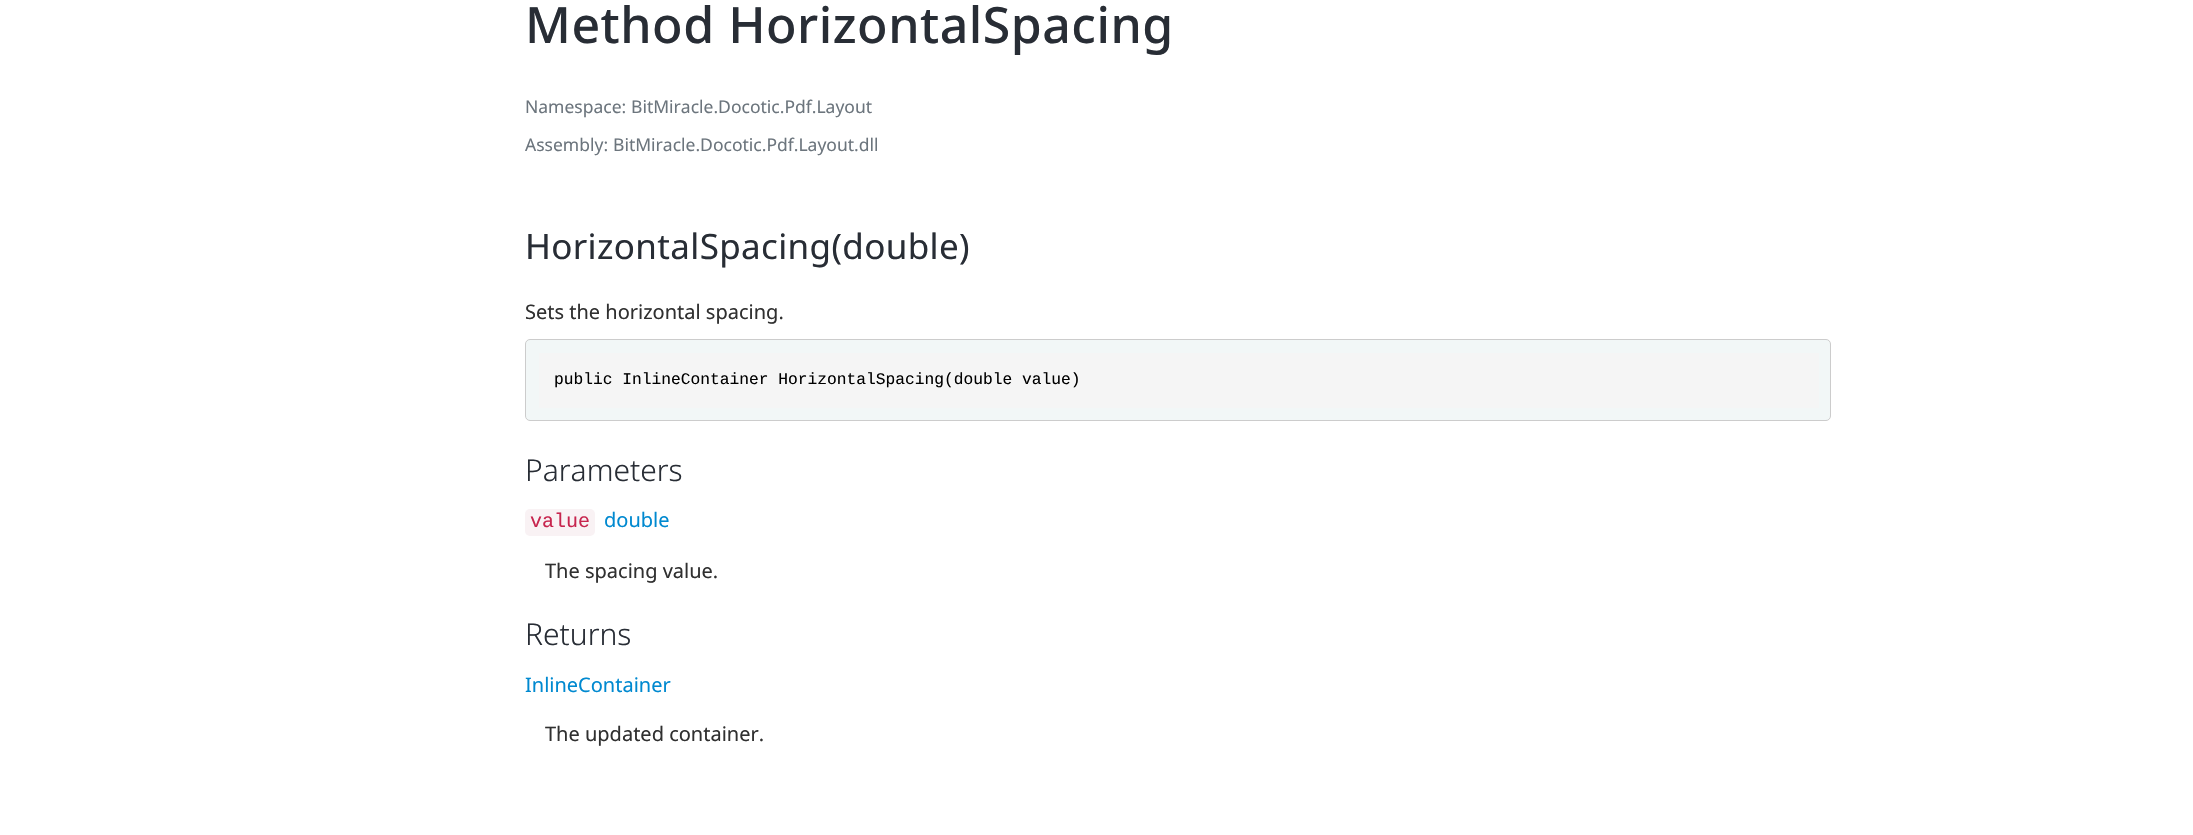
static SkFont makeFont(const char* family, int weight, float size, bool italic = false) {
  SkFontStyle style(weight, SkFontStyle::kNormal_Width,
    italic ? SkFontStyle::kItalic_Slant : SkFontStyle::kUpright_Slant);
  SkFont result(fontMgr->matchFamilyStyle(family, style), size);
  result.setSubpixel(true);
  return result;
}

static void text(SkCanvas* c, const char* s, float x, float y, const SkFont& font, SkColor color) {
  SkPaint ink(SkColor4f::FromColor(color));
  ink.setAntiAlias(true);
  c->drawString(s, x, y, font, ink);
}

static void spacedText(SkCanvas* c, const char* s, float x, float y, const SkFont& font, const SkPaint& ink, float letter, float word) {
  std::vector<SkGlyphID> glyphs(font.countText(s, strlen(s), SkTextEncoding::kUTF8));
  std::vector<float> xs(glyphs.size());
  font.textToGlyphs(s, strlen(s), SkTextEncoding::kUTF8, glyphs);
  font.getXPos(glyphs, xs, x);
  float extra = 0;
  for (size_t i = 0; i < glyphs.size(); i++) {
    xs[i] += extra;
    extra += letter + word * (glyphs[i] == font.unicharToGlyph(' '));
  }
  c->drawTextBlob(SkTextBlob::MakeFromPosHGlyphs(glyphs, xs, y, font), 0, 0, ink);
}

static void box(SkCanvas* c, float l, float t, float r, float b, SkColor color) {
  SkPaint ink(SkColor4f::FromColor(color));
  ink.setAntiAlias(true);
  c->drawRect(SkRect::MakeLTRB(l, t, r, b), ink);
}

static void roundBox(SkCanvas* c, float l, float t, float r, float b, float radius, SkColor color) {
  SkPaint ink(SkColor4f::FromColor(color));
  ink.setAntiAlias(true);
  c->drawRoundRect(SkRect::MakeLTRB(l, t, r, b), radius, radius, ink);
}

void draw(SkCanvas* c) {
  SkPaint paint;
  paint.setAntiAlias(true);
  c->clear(0xffffffff);
  SkFont face1 = makeFont("Noto Sans", 500, 50);
  paint.setColor(0xff282d35);
  spacedText(c, "Method HorizontalSpacing", 525, 43, face1, paint, 0.5f, 0);
  SkFont face2 = makeFont("Noto Sans", 400, 17.5f);
  text(c, "Namespace:", 525, 113, face2, 0xff6c757d);
  text(c, "BitMiracle.Docotic.Pdf.Layout", 631, 113, face2, 0xff6c757d);
  text(c, "Assembly:", 525, 151, face2, 0xff6c757d);
  text(c, "BitMiracle.Docotic.Pdf.Layout.dll", 613, 151, face2, 0xff6c757d);
  SkFont face3 = makeFont("Noto Sans", 400, 35);
  spacedText(c, "HorizontalSpacing(double)", 525, 259, face3, paint, 0.35f, 0);
  SkFont face4 = makeFont("Noto Sans", 400, 20);
  text(c, "Sets the horizontal spacing.", 525, 319, face4, 0xff303030);
  paint.setColor(0xfff2f7f7);
  c->drawRoundRect(SkRect::MakeLTRB(525.5f, 339.5f, 1830.5f, 420.5f), 4.5f, 4.5f, paint);
  paint.setStyle(SkPaint::kStroke_Style);
  paint.setStrokeWidth(1);
  paint.setColor(0xffcccccc);
  c->drawRoundRect(SkRect::MakeLTRB(525.5f, 339.5f, 1830.5f, 420.5f), 4.5f, 4.5f, paint);
  box(c, 539, 353, 1819, 408, 0xfff5f5f5);
  SkFont face5 = makeFont("Liberation Mono", 400, 16.25f);
  text(c, "public InlineContainer HorizontalSpacing(double value)", 554, 384, face5, 0xff000000);
  SkFont face6 = makeFont("Noto Sans", 300, 30);
  text(c, "Parameters", 525, 481, face6, 0xff282d35);
  roundBox(c, 525, 509, 595, 536, 5, 0xfff9f2f4);
  SkFont face7 = makeFont("Liberation Mono", 400, 20);
  text(c, "value", 530, 527, face7, 0xffc7254e);
  text(c, "double", 604, 527, face4, 0xff0089d0);
  text(c, "The spacing value.", 545, 578, face4, 0xff303030);
  text(c, "Returns", 525, 645, face6, 0xff282d35);
  text(c, "InlineContainer", 525, 692, face4, 0xff0089d0);
  text(c, "The updated container.", 545, 741, face4, 0xff303030);
}
